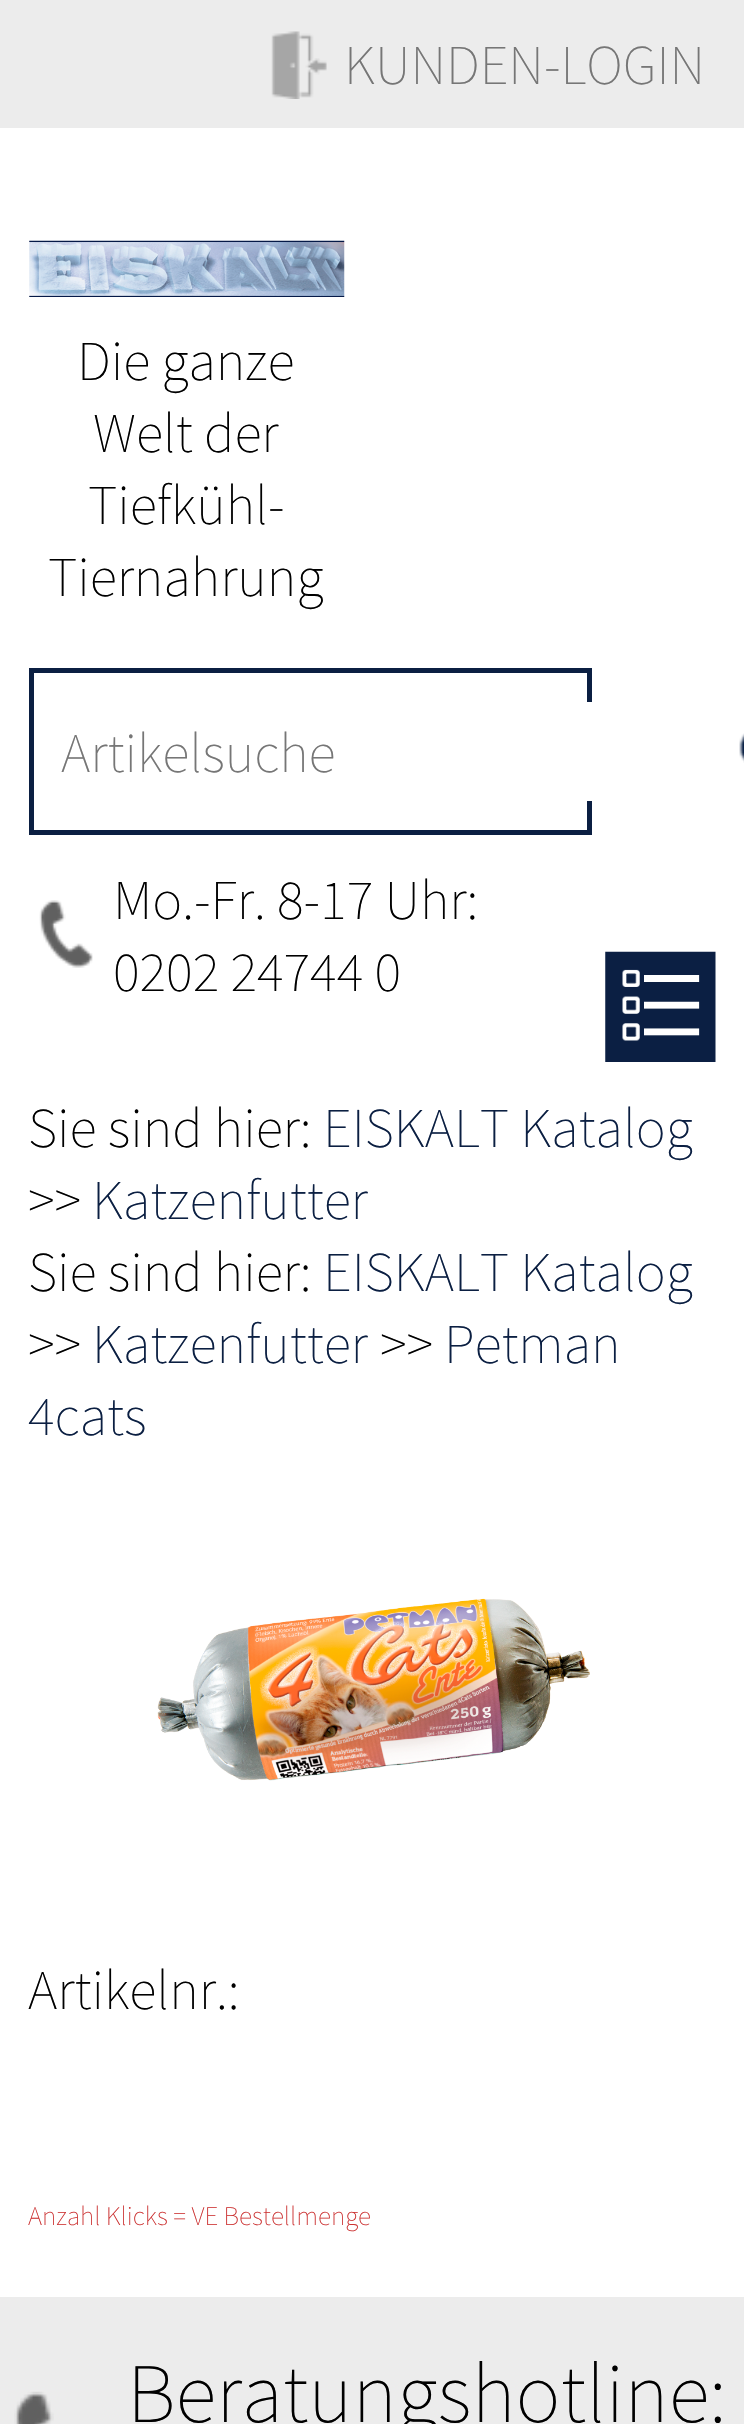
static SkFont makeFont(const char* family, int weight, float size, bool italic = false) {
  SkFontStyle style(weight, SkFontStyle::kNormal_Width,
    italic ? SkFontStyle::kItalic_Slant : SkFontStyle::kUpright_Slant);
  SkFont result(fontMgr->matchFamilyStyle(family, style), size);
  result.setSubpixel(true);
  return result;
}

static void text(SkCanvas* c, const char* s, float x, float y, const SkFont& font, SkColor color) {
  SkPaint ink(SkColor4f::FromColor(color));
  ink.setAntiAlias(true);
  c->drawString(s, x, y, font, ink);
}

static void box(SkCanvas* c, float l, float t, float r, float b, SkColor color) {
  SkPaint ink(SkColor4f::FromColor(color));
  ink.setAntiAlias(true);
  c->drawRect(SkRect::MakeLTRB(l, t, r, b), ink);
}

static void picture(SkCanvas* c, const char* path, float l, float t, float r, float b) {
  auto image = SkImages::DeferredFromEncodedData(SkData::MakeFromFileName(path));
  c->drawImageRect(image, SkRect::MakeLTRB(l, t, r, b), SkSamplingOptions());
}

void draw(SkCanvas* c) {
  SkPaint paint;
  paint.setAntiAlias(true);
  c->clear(0xffffffff);
  box(c, 0, 0, 744, 128, 0xffececec);
  picture(c, "img_01.png", 271, 31, 327, 99);
  SkFont face1 = makeFont("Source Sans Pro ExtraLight", 200, 56.25f);
  text(c, "KUNDEN-LOGIN", 344, 84, face1, 0xff767676);
  picture(c, "img_02.png", 29, 240, 345, 297);
  text(c, "Die ganze", 77, 380, face1, 0xff000000);
  text(c, "Welt der", 93, 452, face1, 0xff000000);
  text(c, "Tiefkühl-", 88, 524, face1, 0xff000000);
  text(c, "Tiernahrung", 48, 596, face1, 0xff000000);
  paint.setStyle(SkPaint::kStroke_Style);
  paint.setStrokeWidth(5);
  paint.setColor(0xff0b1f42);
  c->drawRect(SkRect::MakeLTRB(31.5f, 670.5f, 589.5f, 832.5f), paint);
  box(c, 587, 702, 592, 801, 0xffffffff);
  text(c, "Artikelsuche", 61, 772, face1, 0xff767676);
  picture(c, "img_03.png", 739, 733, 744, 763);
  picture(c, "img_04.png", 39, 900, 93, 968);
  text(c, "Mo.-Fr. 8-17 Uhr:", 113, 919, face1, 0xff000000);
  text(c, "0202 24744 0", 113, 991, face1, 0xff000000);
  picture(c, "img_05.png", 605, 951, 716, 1062);
  text(c, "Sie sind hier:", 28, 1147, face1, 0xff000000);
  text(c, "EISKALT Katalog", 323, 1147, face1, 0xff0b1f42);
  text(c, ">>", 28, 1219, face1, 0xff000000);
  text(c, "Katzenfutter", 92, 1219, face1, 0xff0b1f42);
  text(c, "Sie sind hier:", 28, 1291, face1, 0xff000000);
  text(c, "EISKALT Katalog", 323, 1291, face1, 0xff0b1f42);
  text(c, ">>", 28, 1363, face1, 0xff000000);
  text(c, "Katzenfutter", 92, 1363, face1, 0xff0b1f42);
  text(c, ">>", 380, 1363, face1, 0xff000000);
  text(c, "Petman", 444, 1363, face1, 0xff0b1f42);
  text(c, "4cats", 28, 1435, face1, 0xff0b1f42);
  picture(c, "img_06.png", 157, 1598, 590, 1781);
  text(c, "Artikelnr.:", 28, 2009, face1, 0xff000000);
  SkFont face2 = makeFont("Source Sans Pro ExtraLight", 200, 27);
  text(c, "Anzahl Klicks = VE Bestellmenge", 28, 2225, face2, 0xffcc3333);
  box(c, 0, 2297, 744, 2424, 0xffececec);
  picture(c, "img_07.png", 14, 2391, 54, 2424);
  SkFont face3 = makeFont("Source Sans Pro ExtraLight", 200, 84.5f);
  text(c, "Beratungshotline:", 127, 2422, face3, 0xff000000);
}
